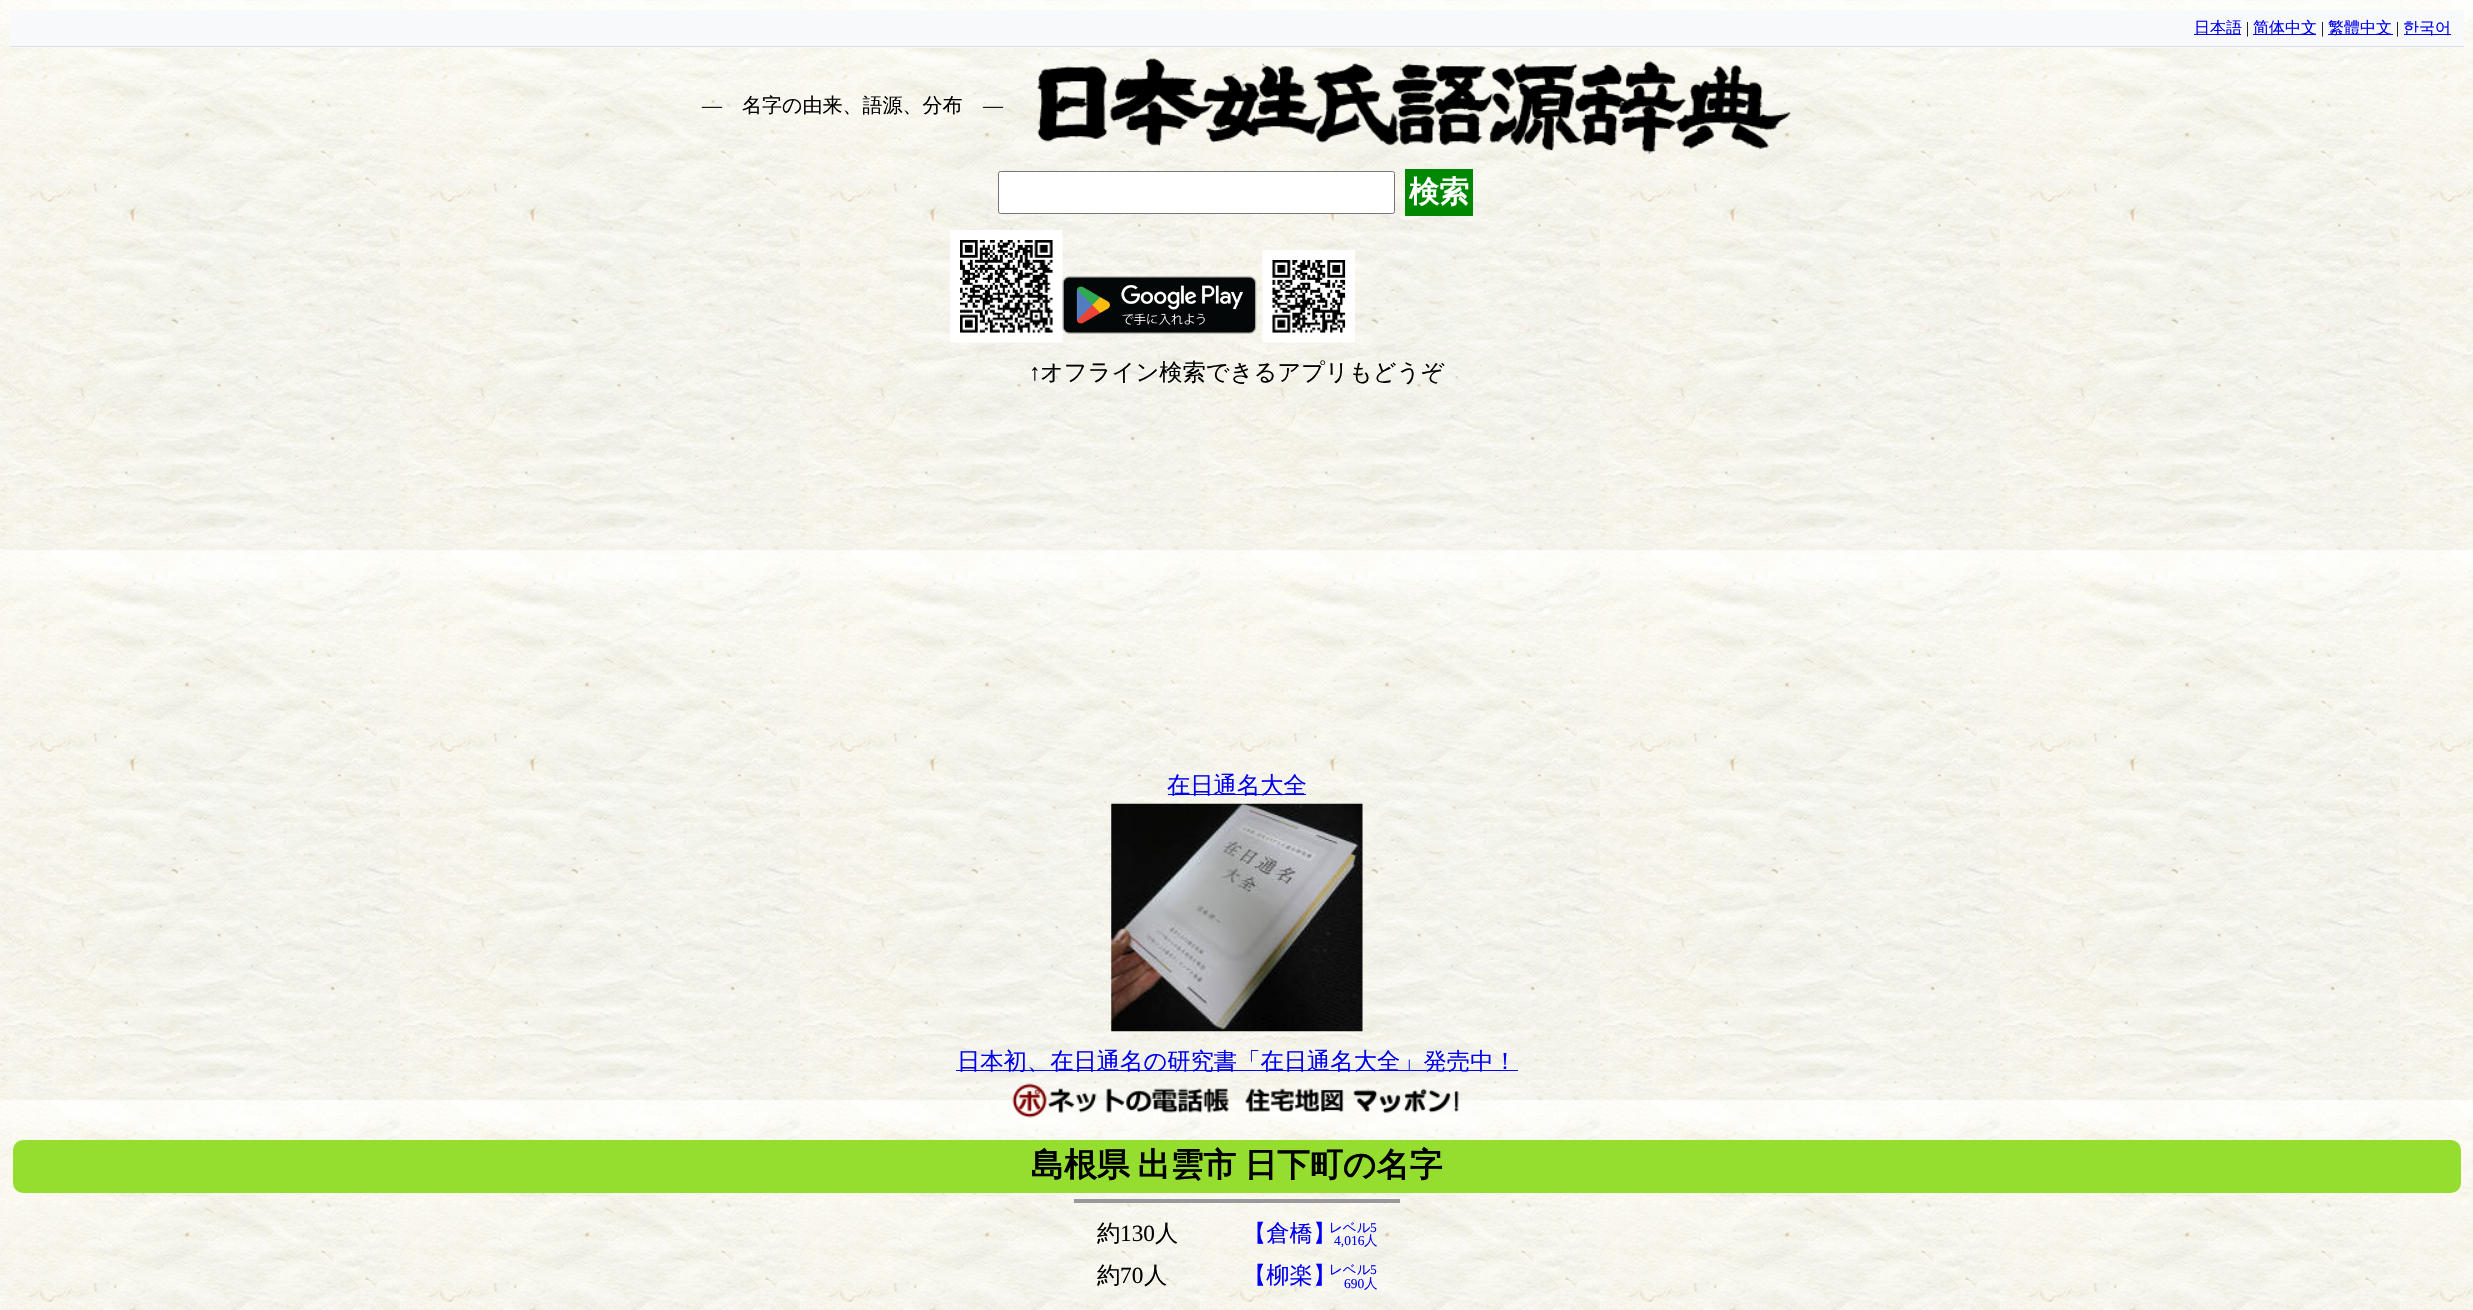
static SkFont makeFont(const char* family, int weight, float size, bool italic = false) {
  SkFontStyle style(weight, SkFontStyle::kNormal_Width,
    italic ? SkFontStyle::kItalic_Slant : SkFontStyle::kUpright_Slant);
  SkFont result(fontMgr->matchFamilyStyle(family, style), size);
  result.setSubpixel(true);
  return result;
}

static void text(SkCanvas* c, const char* s, float x, float y, const SkFont& font, SkColor color) {
  SkPaint ink(SkColor4f::FromColor(color));
  ink.setAntiAlias(true);
  c->drawString(s, x, y, font, ink);
}

static void spacedText(SkCanvas* c, const char* s, float x, float y, const SkFont& font, const SkPaint& ink, float letter, float word) {
  std::vector<SkGlyphID> glyphs(font.countText(s, strlen(s), SkTextEncoding::kUTF8));
  std::vector<float> xs(glyphs.size());
  font.textToGlyphs(s, strlen(s), SkTextEncoding::kUTF8, glyphs);
  font.getXPos(glyphs, xs, x);
  float extra = 0;
  for (size_t i = 0; i < glyphs.size(); i++) {
    xs[i] += extra;
    extra += letter + word * (glyphs[i] == font.unicharToGlyph(' '));
  }
  c->drawTextBlob(SkTextBlob::MakeFromPosHGlyphs(glyphs, xs, y, font), 0, 0, ink);
}

static void box(SkCanvas* c, float l, float t, float r, float b, SkColor color) {
  SkPaint ink(SkColor4f::FromColor(color));
  ink.setAntiAlias(true);
  c->drawRect(SkRect::MakeLTRB(l, t, r, b), ink);
}

static void roundBox(SkCanvas* c, float l, float t, float r, float b, float radius, SkColor color) {
  SkPaint ink(SkColor4f::FromColor(color));
  ink.setAntiAlias(true);
  c->drawRoundRect(SkRect::MakeLTRB(l, t, r, b), radius, radius, ink);
}

static void picture(SkCanvas* c, const char* path, float l, float t, float r, float b) {
  auto image = SkImages::DeferredFromEncodedData(SkData::MakeFromFileName(path));
  c->drawImageRect(image, SkRect::MakeLTRB(l, t, r, b), SkSamplingOptions());
}

void draw(SkCanvas* c) {
  SkPaint paint;
  paint.setAntiAlias(true);
  c->clear(0xffffffff);
  picture(c, "img_01.png", 0, 0, 2473, 1310);
  box(c, 10, 10, 2464, 48, 0xfff8f9fa);
  box(c, 10, 46, 2464, 47, 0xffdee2e6);
  box(c, 2194, 34, 2241, 35, 0xff0000ee);
  SkFont face1 = makeFont("WenQuanYi Zen Hei", 500, 16);
  text(c, "日本語", 2194, 33, face1, 0xff0000ee);
  SkFont face2 = makeFont("Liberation Serif", 400, 16);
  text(c, "|", 2246, 33, face2, 0xff000000);
  box(c, 2253, 34, 2316, 35, 0xff0000ee);
  text(c, "简体中文", 2253, 33, face1, 0xff0000ee);
  text(c, "|", 2321, 33, face2, 0xff000000);
  box(c, 2328, 34, 2393, 35, 0xff0000ee);
  text(c, "繁體中文", 2328, 33, face1, 0xff0000ee);
  text(c, "|", 2396, 33, face2, 0xff000000);
  box(c, 2404, 34, 2451, 35, 0xff0000ee);
  text(c, "한국어", 2403, 33, face1, 0xff0000ee);
  SkFont face3 = makeFont("Liberation Serif", 400, 20);
  text(c, "―", 702, 112, face3, 0xff000000);
  SkFont face4 = makeFont("WenQuanYi Zen Hei", 500, 20);
  text(c, "名字の由来、語源、分布", 742, 112, face4, 0xff000000);
  text(c, "―", 983, 112, face3, 0xff000000);
  picture(c, "img_02.png", 1037, 58, 1791, 154);
  paint.setColor(0xffffffff);
  c->drawRoundRect(SkRect::MakeLTRB(998.5f, 171.5f, 1394.5f, 213.5f), 2, 2, paint);
  paint.setStyle(SkPaint::kStroke_Style);
  paint.setStrokeWidth(1);
  paint.setColor(0xff767676);
  c->drawRoundRect(SkRect::MakeLTRB(998.5f, 171.5f, 1394.5f, 213.5f), 2, 2, paint);
  box(c, 1405, 169, 1473, 216, 0xff008800);
  SkFont face5 = makeFont("WenQuanYi Zen Hei", 700, 30);
  text(c, "検索", 1409, 202, face5, 0xffffffff);
  picture(c, "img_03.png", 950, 230, 1063, 343);
  picture(c, "img_04.png", 1062, 276, 1257, 334);
  picture(c, "img_05.png", 1262, 250, 1355, 343);
  SkFont face6 = makeFont("Liberation Serif", 400, 23.3f);
  text(c, "↑", 1029, 380, face6, 0xff000000);
  SkFont face7 = makeFont("WenQuanYi Zen Hei", 500, 23.3f);
  text(c, "オフライン検索できるアプリもどうぞ", 1040, 380, face7, 0xff000000);
  box(c, 1168, 794, 1306, 795, 0xff0000ee);
  text(c, "在日通名大全", 1167, 793, face7, 0xff0000ee);
  picture(c, "img_06.png", 1111, 803, 1363, 1032);
  box(c, 956, 1070, 1518, 1071, 0xff0000ee);
  text(c, "日本初、在日通名の研究書「在日通名大全」発売中！", 957, 1069, face7, 0xff0000ee);
  picture(c, "img_07.png", 1012, 1083, 1229, 1118);
  picture(c, "img_08.png", 1245, 1088, 1459, 1113);
  roundBox(c, 13, 1140, 2461, 1193, 10, 0xff95de30);
  SkFont face8 = makeFont("WenQuanYi Zen Hei", 700, 32.9f);
  paint.setStyle(SkPaint::kFill_Style);
  paint.setColor(0xff000000);
  spacedText(c, "島根県 出雲市 日下町の名字", 1031, 1176, face8, paint, 0, -2);
  box(c, 1074, 1199, 1400, 1203, 0xff999999);
  text(c, "約", 1097, 1241, face7, 0xff000000);
  text(c, "130", 1120, 1241, face6, 0xff000000);
  text(c, "人", 1155, 1241, face7, 0xff000000);
  text(c, "【倉橋】", 1243, 1241, face7, 0xff0000ee);
  SkFont face9 = makeFont("WenQuanYi Zen Hei", 500, 13.5f);
  text(c, "レベル", 1329, 1232, face9, 0xff0000ee);
  SkFont face10 = makeFont("Liberation Serif", 400, 13.5f);
  text(c, "5", 1370, 1232, face10, 0xff0000ee);
  text(c, "4,016", 1334, 1245, face10, 0xff0000ee);
  text(c, "人", 1364, 1245, face9, 0xff0000ee);
  text(c, "約", 1097, 1283, face7, 0xff000000);
  text(c, "70", 1120, 1283, face6, 0xff000000);
  text(c, "人", 1144, 1283, face7, 0xff000000);
  text(c, "【柳楽】", 1243, 1283, face7, 0xff0000ee);
  text(c, "レベル", 1329, 1274, face9, 0xff0000ee);
  text(c, "5", 1370, 1274, face10, 0xff0000ee);
  text(c, "690", 1344, 1288, face10, 0xff0000ee);
  text(c, "人", 1364, 1288, face9, 0xff0000ee);
}
